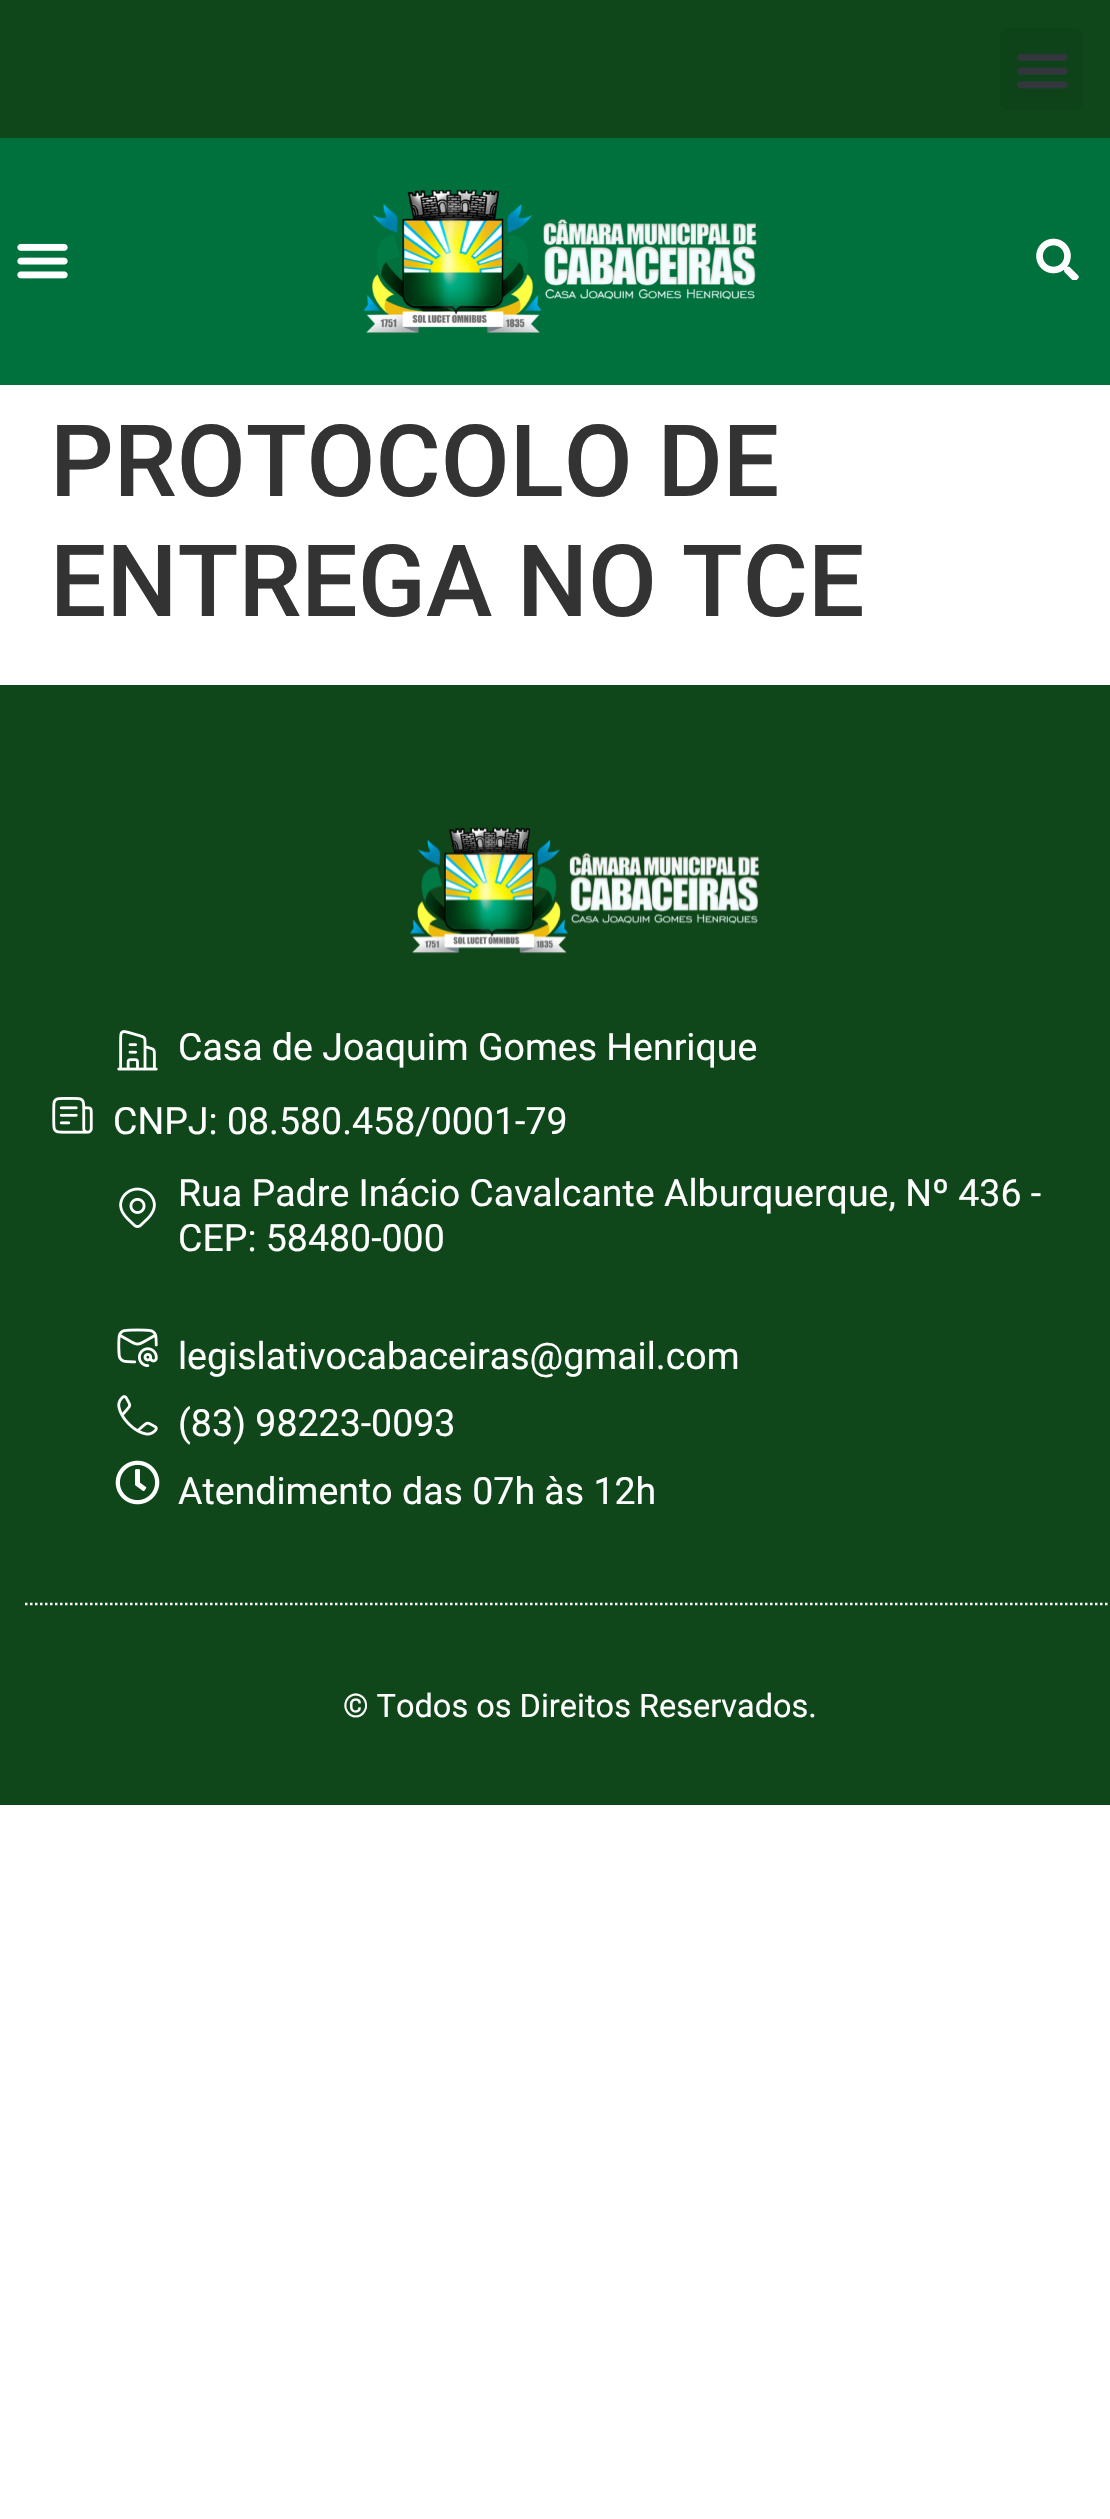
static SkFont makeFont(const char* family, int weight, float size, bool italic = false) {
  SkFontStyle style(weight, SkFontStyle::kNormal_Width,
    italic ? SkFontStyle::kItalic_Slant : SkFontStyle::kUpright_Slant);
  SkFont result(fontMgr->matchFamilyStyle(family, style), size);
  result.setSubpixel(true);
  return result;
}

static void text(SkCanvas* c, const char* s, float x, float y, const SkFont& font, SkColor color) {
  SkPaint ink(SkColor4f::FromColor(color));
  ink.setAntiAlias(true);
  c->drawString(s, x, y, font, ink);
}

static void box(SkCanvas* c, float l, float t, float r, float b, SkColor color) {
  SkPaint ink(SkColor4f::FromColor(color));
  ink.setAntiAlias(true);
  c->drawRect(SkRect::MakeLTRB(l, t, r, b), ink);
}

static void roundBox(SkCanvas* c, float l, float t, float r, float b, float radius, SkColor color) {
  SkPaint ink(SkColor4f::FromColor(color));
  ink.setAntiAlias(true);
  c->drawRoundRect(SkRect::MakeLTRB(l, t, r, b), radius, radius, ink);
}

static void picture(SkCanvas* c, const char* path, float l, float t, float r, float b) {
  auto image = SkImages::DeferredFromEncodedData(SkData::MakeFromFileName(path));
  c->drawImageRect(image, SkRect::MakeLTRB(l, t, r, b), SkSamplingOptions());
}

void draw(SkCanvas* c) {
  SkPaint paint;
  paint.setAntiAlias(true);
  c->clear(0xffffffff);
  box(c, 0, 0, 1110, 138, 0xff0f471b);
  roundBox(c, 1000, 28, 1083, 110, 8, 0xff0e431a);
  picture(c, "img_01.png", 1017, 54, 1068, 89);
  box(c, 0, 138, 1110, 385, 0xff00703d);
  picture(c, "img_02.png", 17, 243, 68, 279);
  picture(c, "img_03.png", 363, 189, 757, 333);
  picture(c, "img_04.png", 1036, 238, 1079, 280);
  SkFont face1 = makeFont("Roboto", 500, 100);
  text(c, "PROTOCOLO DE", 50, 496, face1, 0xff333333);
  text(c, "ENTREGA NO TCE", 50, 616, face1, 0xff333333);
  box(c, 0, 685, 1110, 1805, 0xff0f471b);
  picture(c, "img_05.png", 410, 827, 760, 954);
  picture(c, "img_06.png", 117, 1030, 158, 1071);
  SkFont face2 = makeFont("Roboto", 400, 37.5f);
  text(c, "Casa de Joaquim Gomes Henrique", 178, 1060, face2, 0xffffffff);
  picture(c, "img_07.png", 52, 1097, 93, 1134);
  text(c, "CNPJ: 08.580.458/0001-79", 113, 1134, face2, 0xffffffff);
  picture(c, "img_08.png", 119, 1187, 156, 1228);
  text(c, "Rua Padre Inácio Cavalcante Alburquerque, Nº 436 -", 178, 1206, face2, 0xffffffff);
  text(c, "CEP: 58480-000", 178, 1251, face2, 0xffffffff);
  picture(c, "img_09.png", 117, 1328, 158, 1367);
  text(c, "legislativocabaceiras@gmail.com", 178, 1369, face2, 0xffffffff);
  picture(c, "img_10.png", 117, 1395, 158, 1436);
  text(c, "(83) 98223-0093", 178, 1436, face2, 0xffffffff);
  picture(c, "img_11.png", 115, 1460, 160, 1505);
  text(c, "Atendimento das 07h às 12h", 178, 1504, face2, 0xffffffff);
  paint.setStyle(SkPaint::kStroke_Style);
  paint.setStrokeWidth(2.5f);
  paint.setColor(0xffffffff);
  paint.setPathEffect(SkDashPathEffect::Make({{2.5f, 2.5f}}, 0));
  c->drawPath(SkPathBuilder().moveTo(25, 1604).lineTo(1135, 1604).detach(), paint);
  paint.setPathEffect(nullptr);
  SkFont face3 = makeFont("Roboto", 400, 32.5f);
  text(c, "© Todos os Direitos Reservados.", 343, 1717, face3, 0xffffffff);
}
